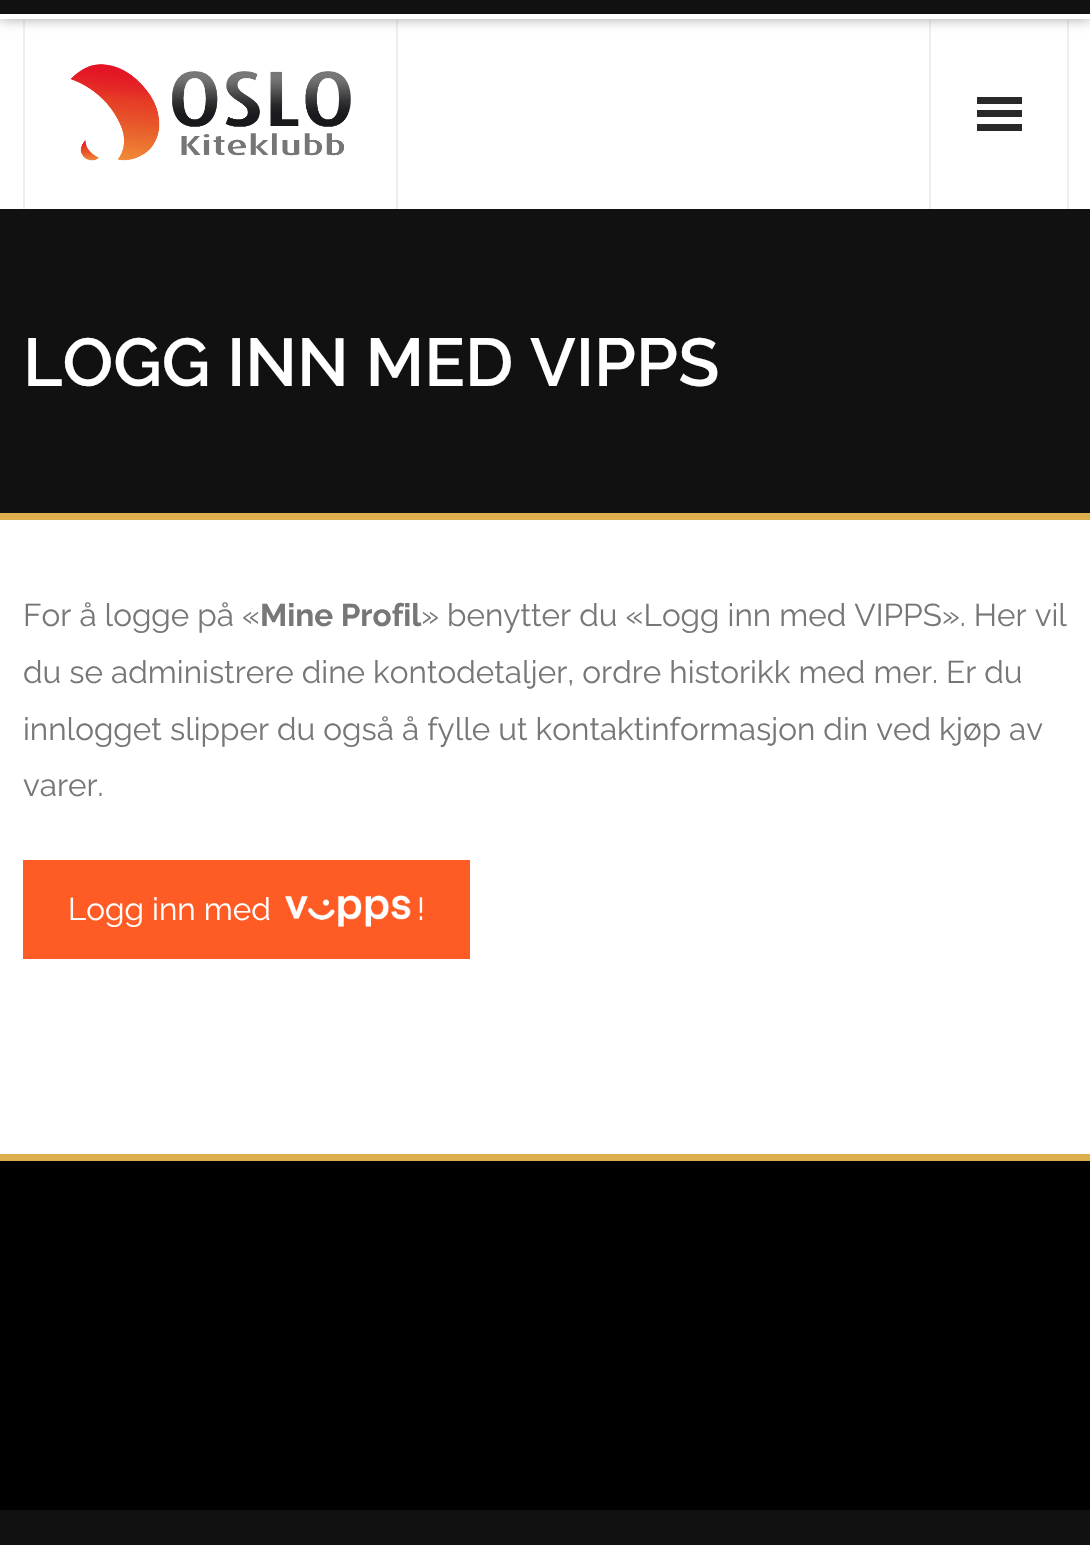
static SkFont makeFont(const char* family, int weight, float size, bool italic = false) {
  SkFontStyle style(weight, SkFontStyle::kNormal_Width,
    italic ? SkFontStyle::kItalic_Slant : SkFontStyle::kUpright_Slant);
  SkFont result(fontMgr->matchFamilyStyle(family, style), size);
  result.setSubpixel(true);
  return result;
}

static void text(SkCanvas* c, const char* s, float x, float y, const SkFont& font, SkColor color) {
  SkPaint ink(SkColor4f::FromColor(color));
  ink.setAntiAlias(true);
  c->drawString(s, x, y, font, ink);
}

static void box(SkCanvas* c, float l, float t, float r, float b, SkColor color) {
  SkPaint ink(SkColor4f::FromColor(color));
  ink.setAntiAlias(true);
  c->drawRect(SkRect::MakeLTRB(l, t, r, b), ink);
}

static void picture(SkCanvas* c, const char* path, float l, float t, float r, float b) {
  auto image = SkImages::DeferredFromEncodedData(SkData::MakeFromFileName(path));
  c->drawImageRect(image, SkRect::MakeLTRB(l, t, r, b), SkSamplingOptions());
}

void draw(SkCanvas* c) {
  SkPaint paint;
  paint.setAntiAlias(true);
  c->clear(0xffffffff);
  box(c, 396, 18, 398, 209, 0xffeeeeee);
  box(c, 23, 18, 25, 209, 0xffeeeeee);
  box(c, 1067, 18, 1069, 209, 0xffeeeeee);
  box(c, 929, 18, 931, 209, 0xffeeeeee);
  paint.setColor(0xff999999);
  paint.setMaskFilter(SkMaskFilter::MakeBlur(kNormal_SkBlurStyle, 7));
  c->drawRect(SkRect::MakeLTRB(0, -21, 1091, 18), paint);
  paint.setMaskFilter(nullptr);
  box(c, 0, 0, 1090, 14, 0xff111111);
  box(c, 0, 14, 1090, 19, 0xffffffff);
  picture(c, "img_01.png", 70, 64, 351, 161);
  box(c, 977, 97, 1022, 104, 0xff292929);
  box(c, 977, 110, 1022, 117, 0xff292929);
  box(c, 977, 124, 1022, 131, 0xff292929);
  box(c, 0, 209, 1090, 513, 0xff111111);
  box(c, 0, 513, 1090, 520, 0xffddaf4d);
  SkFont face1 = makeFont("Raleway", 600, 67.5f);
  text(c, "LOGG INN MED VIPPS", 23, 386, face1, 0xffffffff);
  SkFont face2 = makeFont("Raleway", 400, 31.5f);
  text(c, "For å logge på «", 23, 626, face2, 0xff777777);
  SkFont face3 = makeFont("Raleway", 700, 31.5f);
  text(c, "Mine Profil", 260, 626, face3, 0xff777777);
  text(c, "» benytter du «Logg inn med VIPPS». Her vil", 421, 626, face2, 0xff777777);
  text(c, "du se administrere dine kontodetaljer, ordre historikk med mer. Er du", 23, 683, face2, 0xff777777);
  text(c, "innlogget slipper du også å fylle ut kontaktinformasjon din ved kjøp av", 23, 740, face2, 0xff777777);
  text(c, "varer.", 23, 796, face2, 0xff777777);
  box(c, 23, 860, 470, 959, 0xffff5b24);
  text(c, "Logg inn med", 68, 920, face2, 0xffffffff);
  picture(c, "img_02.png", 285, 895, 411, 927);
  text(c, "!", 417, 920, face2, 0xffffffff);
  box(c, 0, 1161, 1090, 1510, 0xff000000);
  box(c, 0, 1154, 1090, 1161, 0xffddaf4d);
  box(c, 0, 1510, 1090, 1545, 0xff111111);
}
